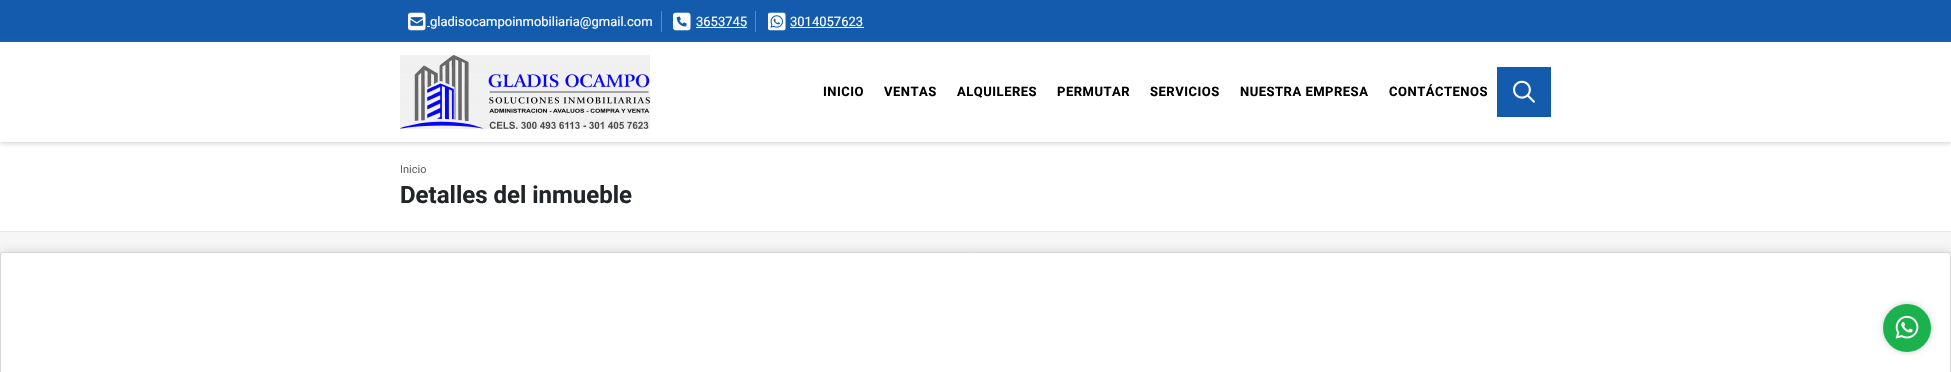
static SkFont makeFont(const char* family, int weight, float size, bool italic = false) {
  SkFontStyle style(weight, SkFontStyle::kNormal_Width,
    italic ? SkFontStyle::kItalic_Slant : SkFontStyle::kUpright_Slant);
  SkFont result(fontMgr->matchFamilyStyle(family, style), size);
  result.setSubpixel(true);
  return result;
}

static void text(SkCanvas* c, const char* s, float x, float y, const SkFont& font, SkColor color) {
  SkPaint ink(SkColor4f::FromColor(color));
  ink.setAntiAlias(true);
  c->drawString(s, x, y, font, ink);
}

static void spacedText(SkCanvas* c, const char* s, float x, float y, const SkFont& font, const SkPaint& ink, float letter, float word) {
  std::vector<SkGlyphID> glyphs(font.countText(s, strlen(s), SkTextEncoding::kUTF8));
  std::vector<float> xs(glyphs.size());
  font.textToGlyphs(s, strlen(s), SkTextEncoding::kUTF8, glyphs);
  font.getXPos(glyphs, xs, x);
  float extra = 0;
  for (size_t i = 0; i < glyphs.size(); i++) {
    xs[i] += extra;
    extra += letter + word * (glyphs[i] == font.unicharToGlyph(' '));
  }
  c->drawTextBlob(SkTextBlob::MakeFromPosHGlyphs(glyphs, xs, y, font), 0, 0, ink);
}

static void box(SkCanvas* c, float l, float t, float r, float b, SkColor color) {
  SkPaint ink(SkColor4f::FromColor(color));
  ink.setAntiAlias(true);
  c->drawRect(SkRect::MakeLTRB(l, t, r, b), ink);
}

static void picture(SkCanvas* c, const char* path, float l, float t, float r, float b) {
  auto image = SkImages::DeferredFromEncodedData(SkData::MakeFromFileName(path));
  c->drawImageRect(image, SkRect::MakeLTRB(l, t, r, b), SkSamplingOptions());
}

void draw(SkCanvas* c) {
  SkPaint paint;
  paint.setAntiAlias(true);
  c->clear(0xfff6f6f6);
  box(c, 0, 0, 1951, 42, 0xff145bad);
  box(c, 661, 11, 662, 32, 0xff5689c4);
  picture(c, "img_01.png", 408, 12, 426, 31);
  box(c, 427, 26, 430, 27, 0xffffffff);
  SkFont face1 = makeFont("Roboto", 400, 13);
  text(c, "gladisocampoinmobiliaria@gmail.com", 430, 26, face1, 0xffffffff);
  box(c, 755, 11, 756, 32, 0xff5689c4);
  picture(c, "img_02.png", 673, 12, 691, 31);
  text(c, "3653745", 696, 26, face1, 0xffffffff);
  box(c, 696, 27, 747, 28, 0xffffffff);
  picture(c, "img_03.png", 768, 12, 786, 31);
  text(c, "3014057623", 790, 26, face1, 0xffffffff);
  box(c, 790, 27, 864, 28, 0xffffffff);
  box(c, 0, 142, 1951, 231, 0xffffffff);
  paint.setColor(0x80bababa);
  paint.setMaskFilter(SkMaskFilter::MakeBlur(kNormal_SkBlurStyle, 2));
  c->drawRect(SkRect::MakeLTRB(0, 44, 1951, 144), paint);
  paint.setMaskFilter(nullptr);
  box(c, 0, 42, 1951, 142, 0xffffffff);
  picture(c, "img_04.png", 400, 55, 650, 129);
  SkFont face2 = makeFont("Roboto", 700, 13);
  paint.setColor(0xff000000);
  spacedText(c, "INICIO", 823, 96, face2, paint, 0.5f, 0);
  spacedText(c, "VENTAS", 884, 96, face2, paint, 0.5f, 0);
  spacedText(c, "ALQUILERES", 957, 96, face2, paint, 0.5f, 0);
  spacedText(c, "PERMUTAR", 1057, 96, face2, paint, 0.5f, 0);
  spacedText(c, "SERVICIOS", 1150, 96, face2, paint, 0.5f, 0);
  spacedText(c, "NUESTRA EMPRESA", 1240, 96, face2, paint, 0.5f, 0);
  spacedText(c, "CONTÁCTENOS", 1389, 96, face2, paint, 0.5f, 0);
  box(c, 1497, 67, 1551, 117, 0xff145bad);
  picture(c, "img_05.png", 1513, 80, 1535, 103);
  box(c, 0, 231, 1951, 232, 0xffe6e6e6);
  SkFont face3 = makeFont("Roboto", 400, 11);
  text(c, "Inicio", 400, 173, face3, 0xff666666);
  SkFont face4 = makeFont("Roboto", 700, 24);
  text(c, "Detalles del inmueble", 400, 203, face4, 0xff212529);
  paint.setColor(0x80b0b0b0);
  paint.setMaskFilter(SkMaskFilter::MakeBlur(kNormal_SkBlurStyle, 5.5f));
  c->drawRoundRect(SkRect::MakeLTRB(0, 252, 1951, 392), 3, 3, paint);
  paint.setMaskFilter(nullptr);
  paint.setColor(0xffffffff);
  c->drawRoundRect(SkRect::MakeLTRB(0.5f, 252.5f, 1950.5f, 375.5f), 2.5f, 2.5f, paint);
  paint.setStyle(SkPaint::kStroke_Style);
  paint.setStrokeWidth(1);
  paint.setColor(0xffd7d6d6);
  c->drawRoundRect(SkRect::MakeLTRB(0.5f, 252.5f, 1950.5f, 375.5f), 2.5f, 2.5f, paint);
  paint.setStyle(SkPaint::kFill_Style);
  paint.setColor(0x33000000);
  paint.setMaskFilter(SkMaskFilter::MakeBlur(kNormal_SkBlurStyle, 3));
  c->drawRoundRect(SkRect::MakeLTRB(1883, 304, 1931, 352), 24, 24, paint);
  paint.setMaskFilter(nullptr);
  paint.setColor(0xff1bb24e);
  c->drawCircle(1907, 328, 24, paint);
  picture(c, "img_06.png", 1895, 315, 1919, 339);
}
